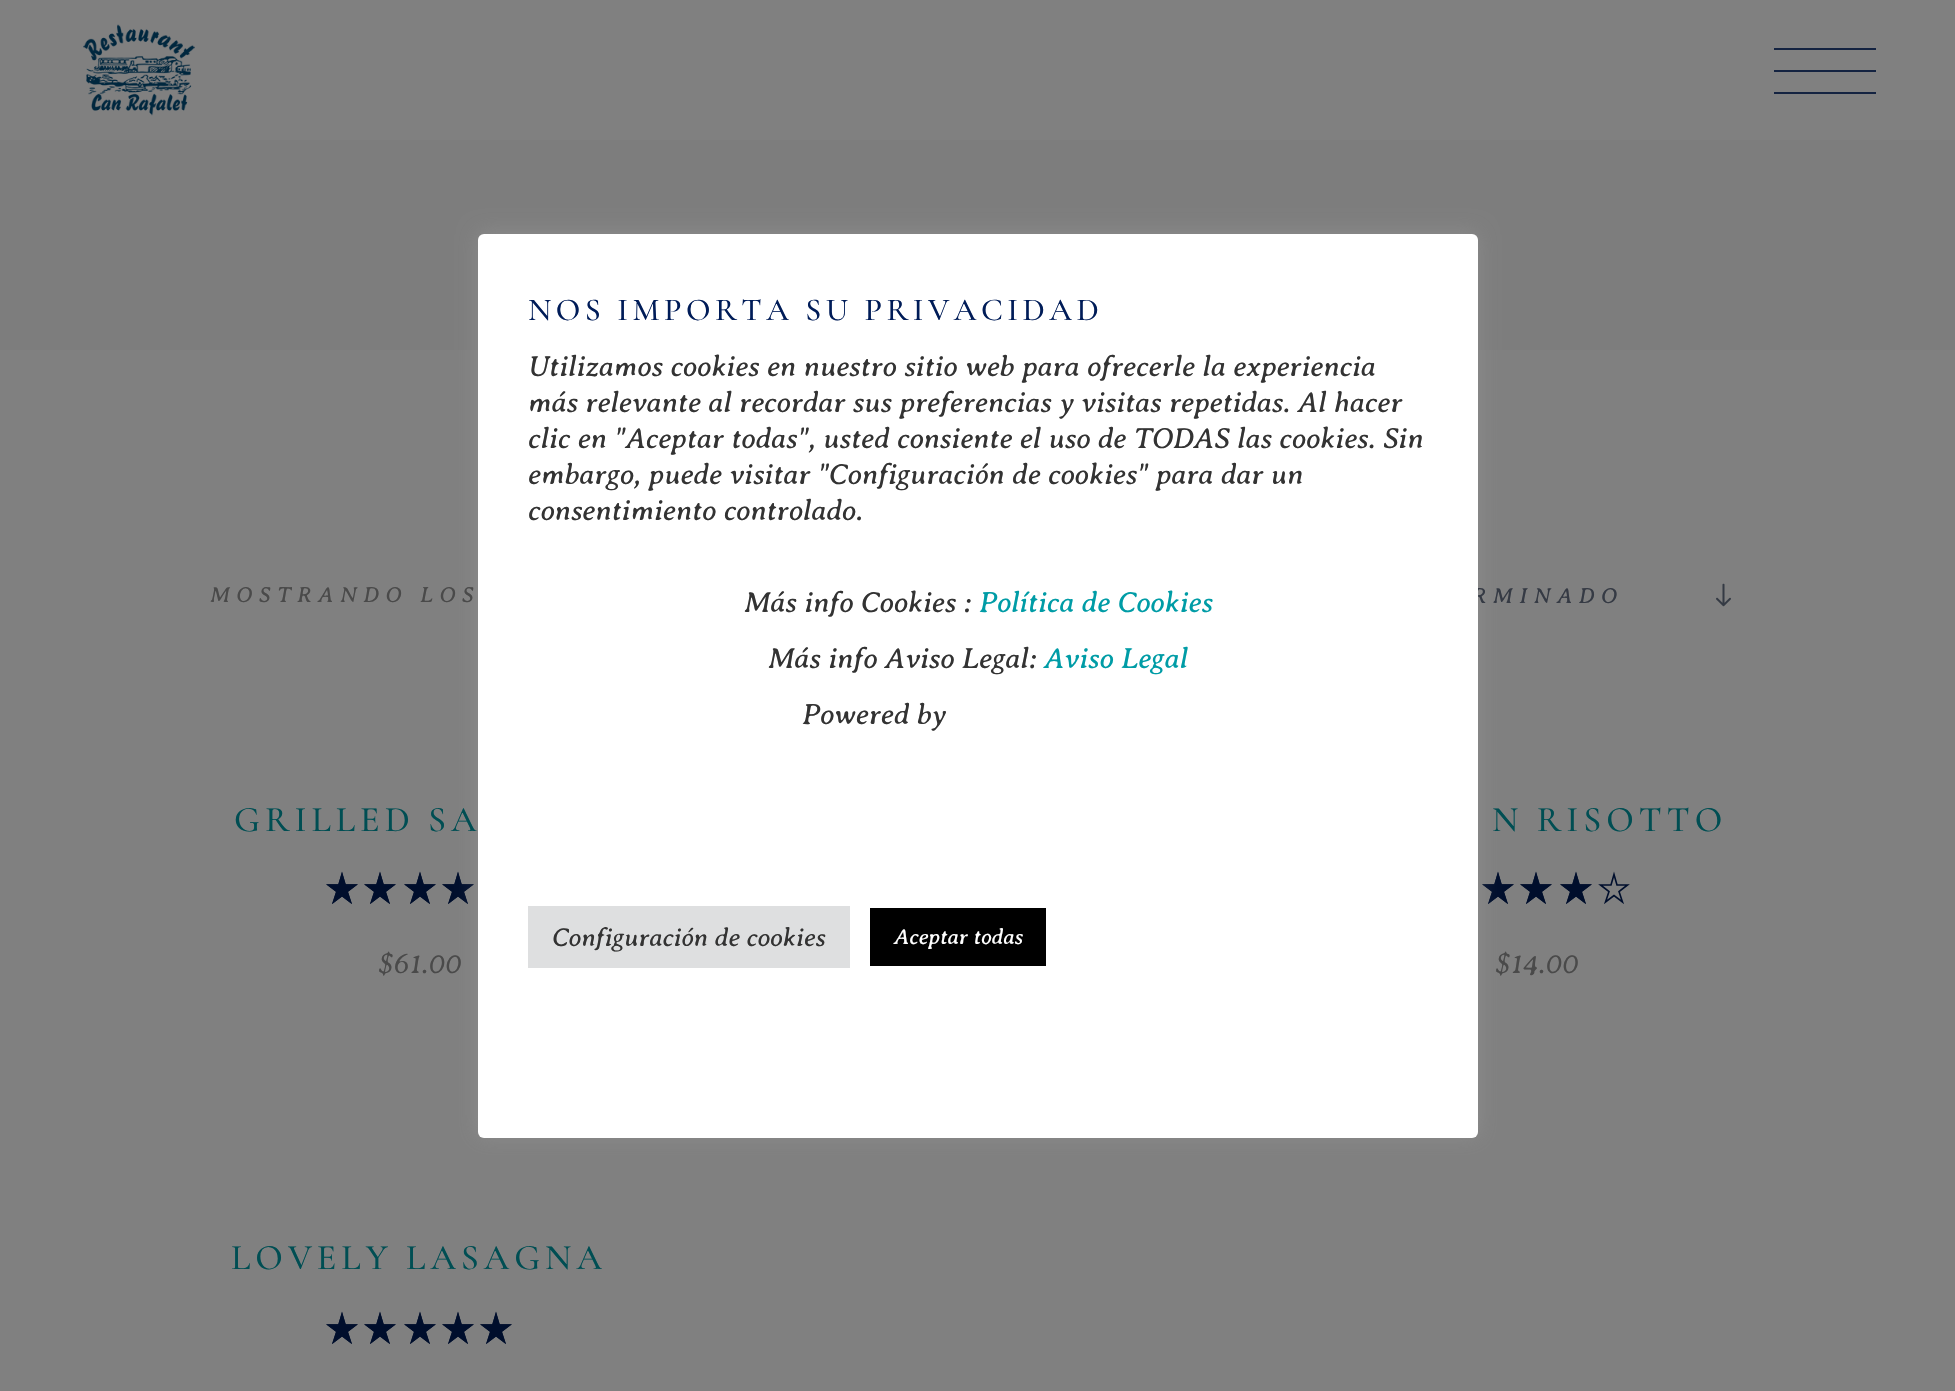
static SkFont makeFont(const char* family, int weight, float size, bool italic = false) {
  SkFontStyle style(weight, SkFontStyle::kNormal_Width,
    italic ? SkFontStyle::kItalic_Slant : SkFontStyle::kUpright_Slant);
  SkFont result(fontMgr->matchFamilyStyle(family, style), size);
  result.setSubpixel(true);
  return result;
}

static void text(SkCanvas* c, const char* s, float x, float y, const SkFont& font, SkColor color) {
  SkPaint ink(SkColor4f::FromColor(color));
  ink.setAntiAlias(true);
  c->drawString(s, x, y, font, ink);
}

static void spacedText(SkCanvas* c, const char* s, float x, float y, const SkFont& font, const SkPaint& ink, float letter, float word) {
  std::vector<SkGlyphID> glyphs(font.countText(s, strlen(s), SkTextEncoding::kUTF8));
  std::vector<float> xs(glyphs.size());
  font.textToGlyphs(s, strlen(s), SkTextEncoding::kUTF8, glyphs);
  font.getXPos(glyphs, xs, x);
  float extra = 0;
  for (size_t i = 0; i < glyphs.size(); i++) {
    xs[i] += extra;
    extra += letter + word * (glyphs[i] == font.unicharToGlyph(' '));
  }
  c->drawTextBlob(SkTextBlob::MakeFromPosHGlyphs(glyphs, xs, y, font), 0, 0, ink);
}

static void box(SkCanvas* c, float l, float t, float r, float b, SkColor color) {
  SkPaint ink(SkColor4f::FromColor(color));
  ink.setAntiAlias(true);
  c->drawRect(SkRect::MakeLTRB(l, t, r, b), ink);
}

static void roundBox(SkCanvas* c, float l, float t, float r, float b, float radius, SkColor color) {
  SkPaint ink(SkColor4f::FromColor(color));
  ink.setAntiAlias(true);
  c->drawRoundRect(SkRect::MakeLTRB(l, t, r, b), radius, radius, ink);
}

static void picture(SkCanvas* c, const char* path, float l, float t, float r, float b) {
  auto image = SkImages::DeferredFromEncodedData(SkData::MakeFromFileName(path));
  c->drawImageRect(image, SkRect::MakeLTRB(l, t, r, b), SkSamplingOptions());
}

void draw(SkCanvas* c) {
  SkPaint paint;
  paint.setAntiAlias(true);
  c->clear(0xff808080);
  box(c, 0, 140, 1955, 350, 0xff7d7d7d);
  paint.setStyle(SkPaint::kStroke_Style);
  paint.setStrokeWidth(1.6f);
  paint.setColor(0xff000e2c);
  c->drawPath(SkPathBuilder().moveTo(471.5f, 885).lineTo(461, 885).lineTo(458, 874.5f).lineTo(455, 885).lineTo(444.5f, 885).lineTo(453, 891.5f).lineTo(449.5f, 902).lineTo(458, 895.5f).lineTo(466.5f, 902).lineTo(463, 891.5f).close().detach(), paint);
  picture(c, "img_03.png", 442, 872, 474, 904);
  c->drawPath(SkPathBuilder().moveTo(1511.5f, 885).lineTo(1501, 885).lineTo(1498, 874.5f).lineTo(1495, 885).lineTo(1484.5f, 885).lineTo(1493, 891.5f).lineTo(1489.5f, 902).lineTo(1498, 895.5f).lineTo(1506.5f, 902).lineTo(1503, 891.5f).close().detach(), paint);
  picture(c, "img_03.png", 1482, 872, 1514, 904);
  paint.setStyle(SkPaint::kFill_Style);
  paint.setColor(0x4dacabab);
  paint.setMaskFilter(SkMaskFilter::MakeBlur(kNormal_SkBlurStyle, 10));
  c->drawRoundRect(SkRect::MakeLTRB(478, 232, 1478, 1136), 6, 6, paint);
  paint.setMaskFilter(nullptr);
  SkFont face1 = makeFont("Averia Serif Libre", 400, 22, true);
  paint.setColor(0xff353a44);
  spacedText(c, "RMINADO", 1472, 603, face1, paint, 6.6f, 0);
  roundBox(c, 478, 234, 1478, 1138, 6, 0xffffffff);
  SkFont face2 = makeFont("Cormorant Garamond", 500, 32);
  paint.setColor(0xff001c58);
  spacedText(c, "NOS IMPORTA SU PRIVACIDAD", 528, 320, face2, paint, 4.5f, 0);
  SkFont face3 = makeFont("Averia Serif Libre", 400, 29.3f, true);
  text(c, "Utilizamos cookies en nuestro sitio web para ofrecerle la experiencia", 528, 376, face3, 0xff333333);
  text(c, "más relevante al recordar sus preferencias y visitas repetidas. Al hacer", 528, 412, face3, 0xff333333);
  text(c, "clic en \"Aceptar todas\", usted consiente el uso de TODAS las cookies. Sin", 528, 448, face3, 0xff333333);
  text(c, "embargo, puede visitar \"Configuración de cookies\" para dar un", 528, 484, face3, 0xff333333);
  text(c, "consentimiento controlado.", 528, 520, face3, 0xff333333);
  text(c, "Más info Cookies :", 744, 612, face3, 0xff333333);
  text(c, "Política de Cookies", 979, 612, face3, 0xff009ca6);
  text(c, "Más info Aviso Legal:", 768, 668, face3, 0xff333333);
  text(c, "Aviso Legal", 1044, 668, face3, 0xff009ca6);
  text(c, "Powered by", 802, 724, face3, 0xff333333);
  box(c, 528, 906, 850, 968, 0xffdedfe0);
  SkFont face4 = makeFont("Averia Serif Libre", 400, 26, true);
  text(c, "Configuración de cookies", 552, 946, face4, 0xff333333);
  box(c, 870, 908, 1046, 966, 0xff000000);
  text(c, "Aceptar todas", 894, 944, face1, 0xffffffff);
  picture(c, "img_01.png", 83, 24, 195, 116);
  box(c, 1774, 48, 1876, 50, 0xff142341);
  box(c, 1774, 70, 1876, 72, 0xff142341);
  box(c, 1774, 92, 1876, 94, 0xff142341);
  paint.setColor(0xff4a4a4a);
  spacedText(c, "MOSTRANDO LOS", 210, 602, face1, paint, 6.6f, 0);
  picture(c, "img_02.png", 1716, 583, 1731, 607);
  SkFont face5 = makeFont("Cormorant Garamond", 500, 36);
  paint.setColor(0xff004e53);
  spacedText(c, "GRILLED SA", 234, 831, face5, paint, 5, 0);
  paint.setStyle(SkPaint::kStroke_Style);
  paint.setColor(0xff000e2c);
  c->drawPath(SkPathBuilder().moveTo(355.5f, 885).lineTo(345, 885).lineTo(342, 874.5f).lineTo(339, 885).lineTo(328.5f, 885).lineTo(337, 891.5f).lineTo(333.5f, 902).lineTo(342, 895.5f).lineTo(350.5f, 902).lineTo(347, 891.5f).close().detach(), paint);
  c->drawPath(SkPathBuilder().moveTo(393.5f, 885).lineTo(383, 885).lineTo(380, 874.5f).lineTo(377, 885).lineTo(366.5f, 885).lineTo(375, 891.5f).lineTo(371.5f, 902).lineTo(380, 895.5f).lineTo(388.5f, 902).lineTo(385, 891.5f).close().detach(), paint);
  c->drawPath(SkPathBuilder().moveTo(433.5f, 885).lineTo(423, 885).lineTo(420, 874.5f).lineTo(417, 885).lineTo(406.5f, 885).lineTo(415, 891.5f).lineTo(411.5f, 902).lineTo(420, 895.5f).lineTo(428.5f, 902).lineTo(425, 891.5f).close().detach(), paint);
  picture(c, "img_03.png", 326, 872, 358, 904);
  picture(c, "img_03.png", 364, 872, 396, 904);
  picture(c, "img_03.png", 404, 872, 436, 904);
  SkFont face6 = makeFont("Averia Serif Libre", 300, 30, true);
  text(c, "$61.00", 378, 973, face6, 0xff4a4a4a);
  paint.setStyle(SkPaint::kFill_Style);
  paint.setColor(0xff004e53);
  spacedText(c, "N RISOTTO", 1492, 831, face5, paint, 5, 0);
  paint.setStyle(SkPaint::kStroke_Style);
  paint.setColor(0xff000e2c);
  c->drawPath(SkPathBuilder().moveTo(1549.5f, 885).lineTo(1539, 885).lineTo(1536, 874.5f).lineTo(1533, 885).lineTo(1522.5f, 885).lineTo(1531, 891.5f).lineTo(1527.5f, 902).lineTo(1536, 895.5f).lineTo(1544.5f, 902).lineTo(1541, 891.5f).close().detach(), paint);
  c->drawPath(SkPathBuilder().moveTo(1589.5f, 885).lineTo(1579, 885).lineTo(1576, 874.5f).lineTo(1573, 885).lineTo(1562.5f, 885).lineTo(1571, 891.5f).lineTo(1567.5f, 902).lineTo(1576, 895.5f).lineTo(1584.5f, 902).lineTo(1581, 891.5f).close().detach(), paint);
  c->drawPath(SkPathBuilder().moveTo(1627.5f, 885).lineTo(1617, 885).lineTo(1614, 874.5f).lineTo(1611, 885).lineTo(1600.5f, 885).lineTo(1609, 891.5f).lineTo(1605.5f, 902).lineTo(1614, 895.5f).lineTo(1622.5f, 902).lineTo(1619, 891.5f).close().detach(), paint);
  picture(c, "img_03.png", 1520, 872, 1552, 904);
  picture(c, "img_03.png", 1560, 872, 1592, 904);
  text(c, "$14.00", 1495, 973, face6, 0xff4a4a4a);
  paint.setStyle(SkPaint::kFill_Style);
  paint.setColor(0xff004e53);
  spacedText(c, "LOVELY LASAGNA", 231, 1269, face5, paint, 5, 0);
  paint.setStyle(SkPaint::kStroke_Style);
  paint.setColor(0xff000e2c);
  c->drawPath(SkPathBuilder().moveTo(355.5f, 1325).lineTo(345, 1325).lineTo(342, 1314.5f).lineTo(339, 1325).lineTo(328.5f, 1325).lineTo(337, 1331.5f).lineTo(333.5f, 1342).lineTo(342, 1335.5f).lineTo(350.5f, 1342).lineTo(347, 1331.5f).close().detach(), paint);
  c->drawPath(SkPathBuilder().moveTo(393.5f, 1325).lineTo(383, 1325).lineTo(380, 1314.5f).lineTo(377, 1325).lineTo(366.5f, 1325).lineTo(375, 1331.5f).lineTo(371.5f, 1342).lineTo(380, 1335.5f).lineTo(388.5f, 1342).lineTo(385, 1331.5f).close().detach(), paint);
  c->drawPath(SkPathBuilder().moveTo(433.5f, 1325).lineTo(423, 1325).lineTo(420, 1314.5f).lineTo(417, 1325).lineTo(406.5f, 1325).lineTo(415, 1331.5f).lineTo(411.5f, 1342).lineTo(420, 1335.5f).lineTo(428.5f, 1342).lineTo(425, 1331.5f).close().detach(), paint);
  c->drawPath(SkPathBuilder().moveTo(471.5f, 1325).lineTo(461, 1325).lineTo(458, 1314.5f).lineTo(455, 1325).lineTo(444.5f, 1325).lineTo(453, 1331.5f).lineTo(449.5f, 1342).lineTo(458, 1335.5f).lineTo(466.5f, 1342).lineTo(463, 1331.5f).close().detach(), paint);
  c->drawPath(SkPathBuilder().moveTo(509.5f, 1325).lineTo(499, 1325).lineTo(496, 1314.5f).lineTo(493, 1325).lineTo(482.5f, 1325).lineTo(491, 1331.5f).lineTo(487.5f, 1342).lineTo(496, 1335.5f).lineTo(504.5f, 1342).lineTo(501, 1331.5f).close().detach(), paint);
  picture(c, "img_03.png", 326, 1312, 358, 1344);
  picture(c, "img_03.png", 364, 1312, 396, 1344);
  picture(c, "img_03.png", 404, 1312, 436, 1344);
  picture(c, "img_03.png", 442, 1312, 474, 1344);
  picture(c, "img_03.png", 480, 1312, 512, 1344);
}
